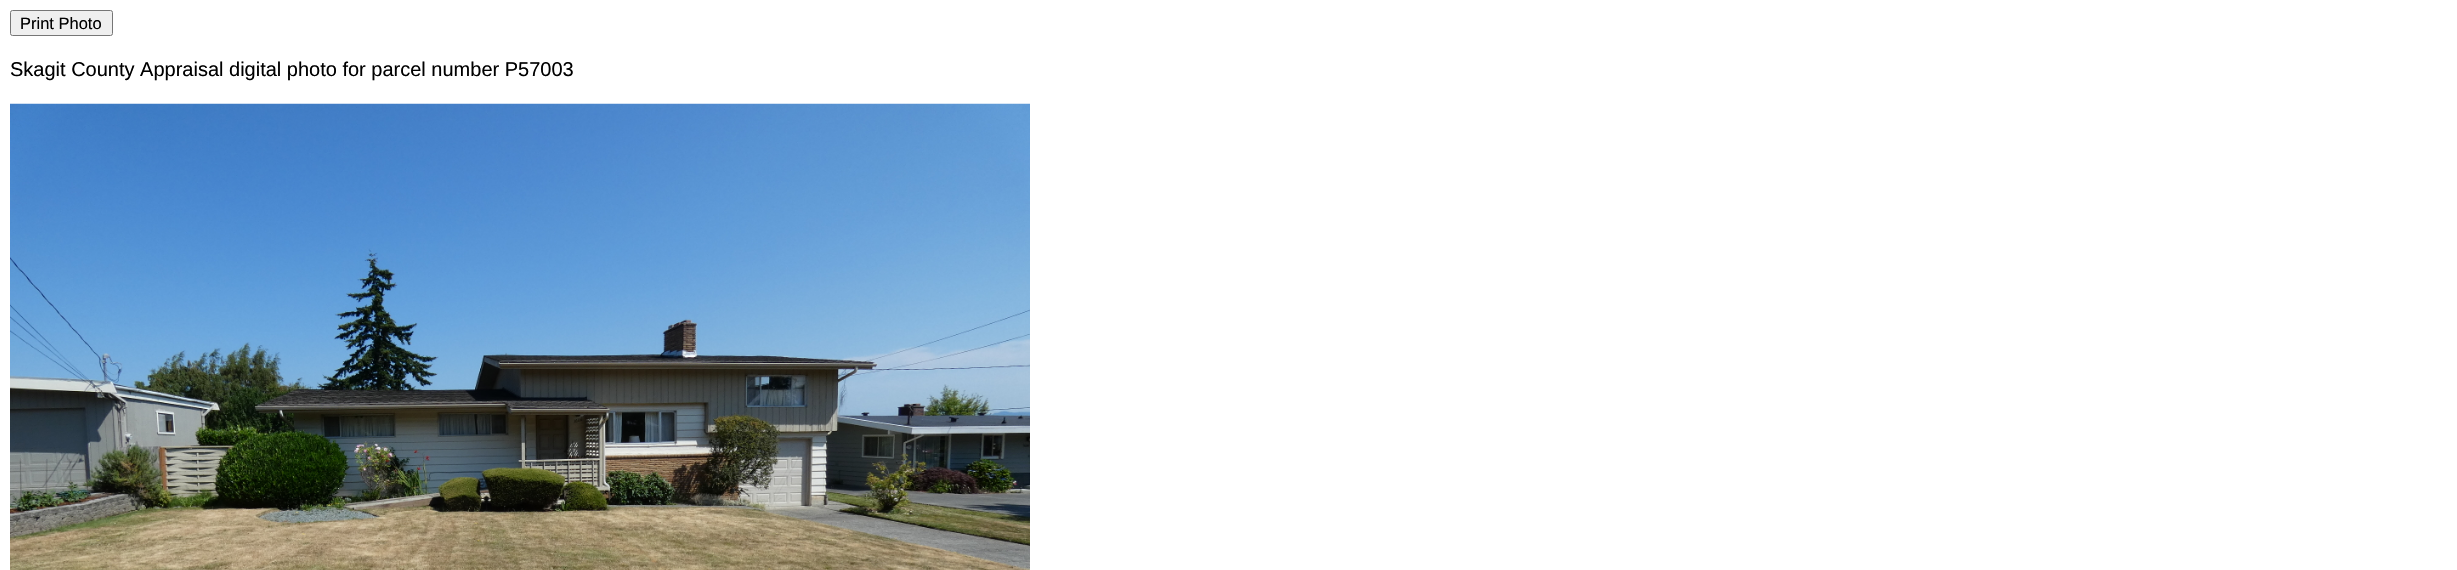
static SkFont makeFont(const char* family, int weight, float size, bool italic = false) {
  SkFontStyle style(weight, SkFontStyle::kNormal_Width,
    italic ? SkFontStyle::kItalic_Slant : SkFontStyle::kUpright_Slant);
  SkFont result(fontMgr->matchFamilyStyle(family, style), size);
  result.setSubpixel(true);
  return result;
}

static void text(SkCanvas* c, const char* s, float x, float y, const SkFont& font, SkColor color) {
  SkPaint ink(SkColor4f::FromColor(color));
  ink.setAntiAlias(true);
  c->drawString(s, x, y, font, ink);
}

static void picture(SkCanvas* c, const char* path, float l, float t, float r, float b) {
  auto image = SkImages::DeferredFromEncodedData(SkData::MakeFromFileName(path));
  c->drawImageRect(image, SkRect::MakeLTRB(l, t, r, b), SkSamplingOptions());
}

void draw(SkCanvas* c) {
  SkPaint paint;
  paint.setAntiAlias(true);
  c->clear(0xffffffff);
  paint.setColor(0xffefefef);
  c->drawRoundRect(SkRect::MakeLTRB(10.5f, 10.5f, 112.5f, 35.5f), 2, 2, paint);
  paint.setStyle(SkPaint::kStroke_Style);
  paint.setStrokeWidth(1);
  paint.setColor(0xff767676);
  c->drawRoundRect(SkRect::MakeLTRB(10.5f, 10.5f, 112.5f, 35.5f), 2, 2, paint);
  SkFont face1 = makeFont("Liberation Sans", 400, 16.5f);
  text(c, "Print Photo", 20, 29, face1, 0xff000000);
  SkFont face2 = makeFont("Liberation Sans", 400, 20);
  text(c, "Skagit County Appraisal digital photo for parcel number P57003", 10, 76, face2, 0xff000000);
  picture(c, "img_01.png", 10, 103, 1030, 570);
}
